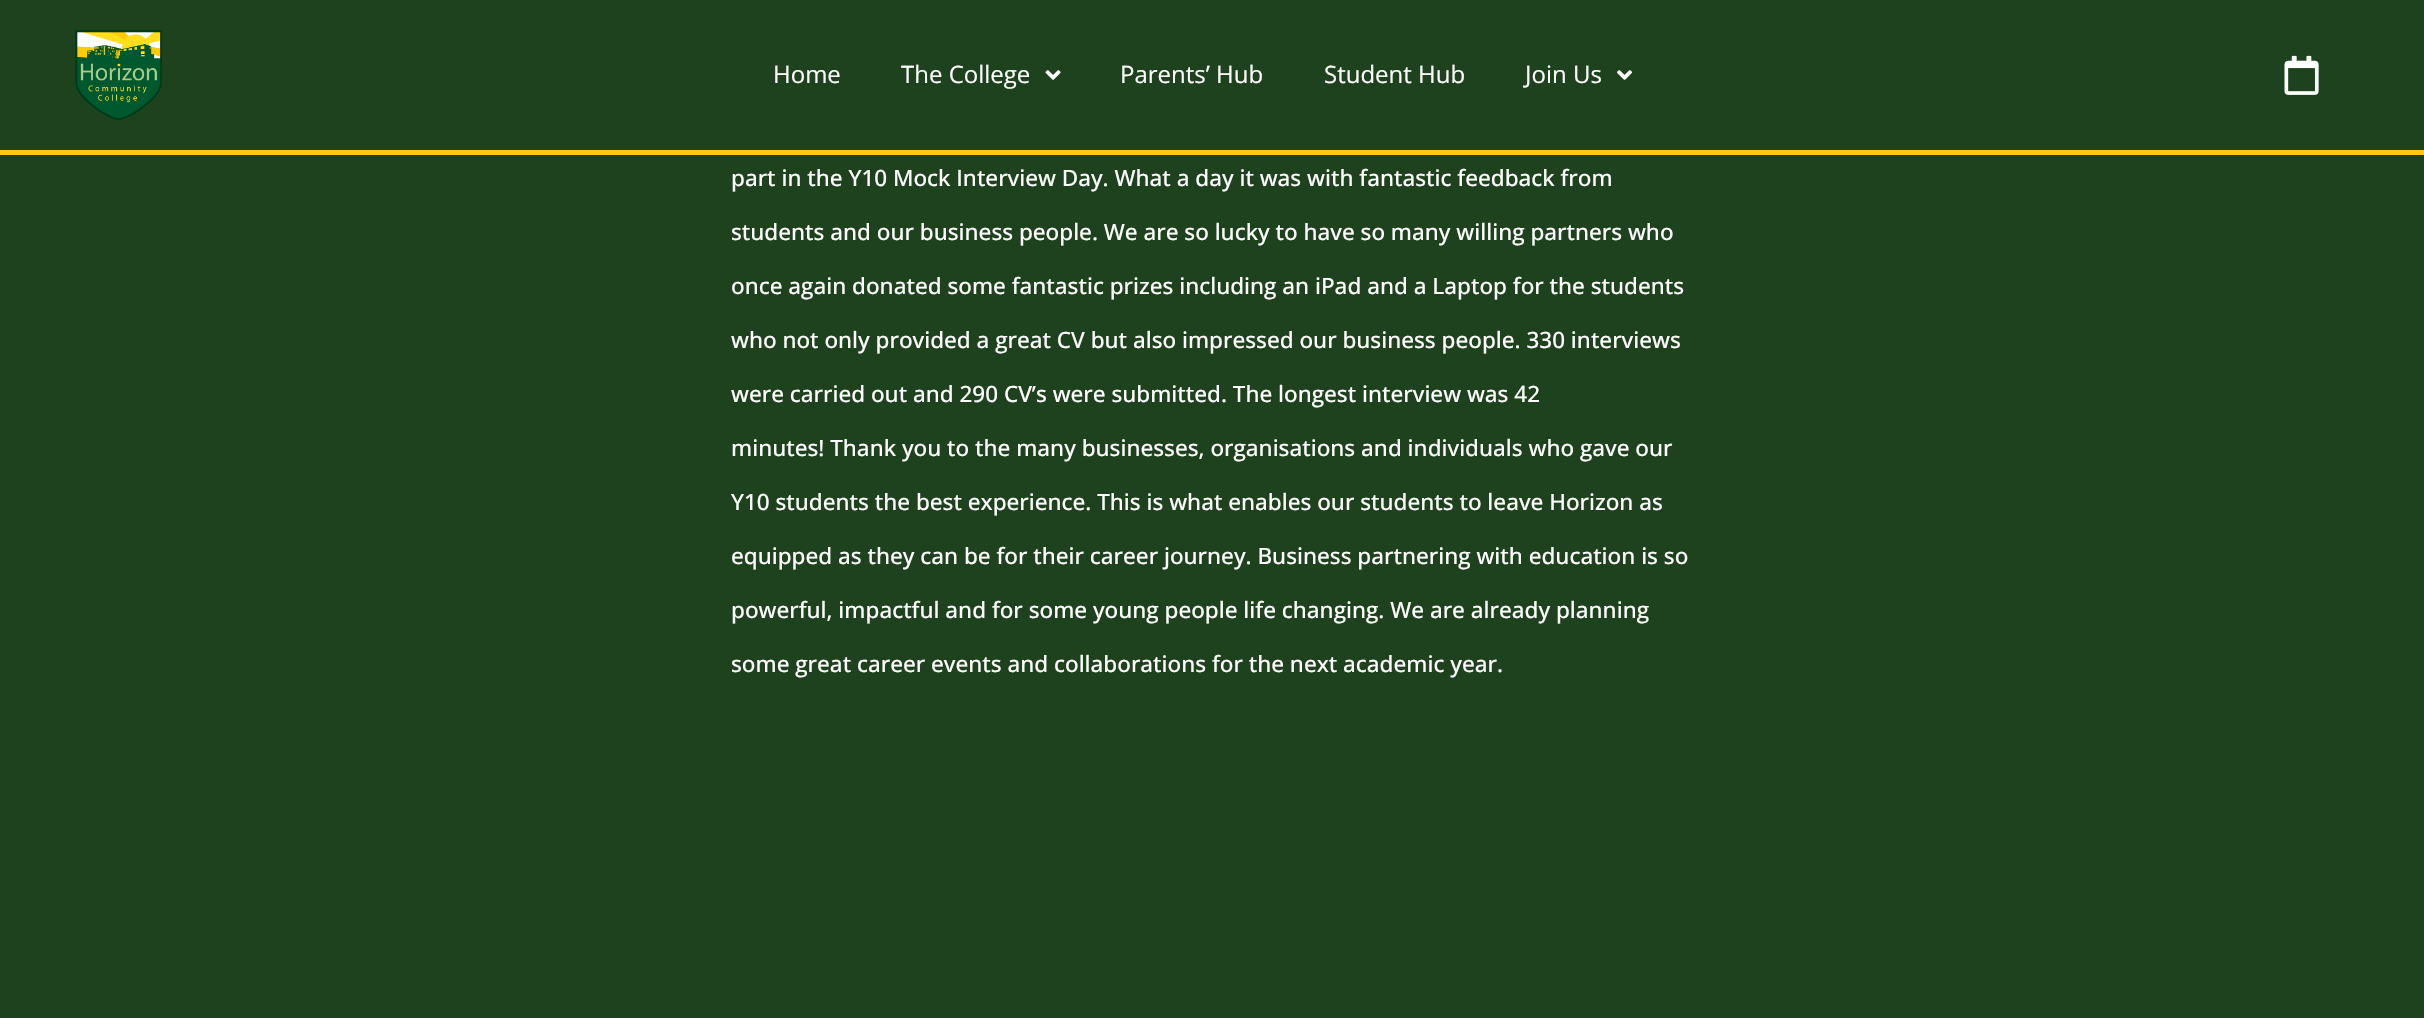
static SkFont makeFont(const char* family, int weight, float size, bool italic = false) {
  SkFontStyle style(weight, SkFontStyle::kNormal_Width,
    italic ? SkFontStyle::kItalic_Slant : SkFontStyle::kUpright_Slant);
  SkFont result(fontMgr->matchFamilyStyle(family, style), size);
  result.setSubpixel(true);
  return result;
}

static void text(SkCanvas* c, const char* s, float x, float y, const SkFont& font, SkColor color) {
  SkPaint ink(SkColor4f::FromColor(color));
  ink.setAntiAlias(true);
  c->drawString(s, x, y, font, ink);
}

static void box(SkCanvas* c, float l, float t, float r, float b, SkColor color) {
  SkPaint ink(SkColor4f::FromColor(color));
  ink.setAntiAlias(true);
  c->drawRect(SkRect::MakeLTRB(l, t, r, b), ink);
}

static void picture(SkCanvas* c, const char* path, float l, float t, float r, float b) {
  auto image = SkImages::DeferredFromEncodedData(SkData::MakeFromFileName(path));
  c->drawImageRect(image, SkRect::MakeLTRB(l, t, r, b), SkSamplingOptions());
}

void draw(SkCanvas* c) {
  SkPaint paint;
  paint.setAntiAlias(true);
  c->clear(0xff1f421e);
  box(c, 0, 150, 2424, 155, 0xfffecb0a);
  picture(c, "img_01.png", 75, 30, 162, 120);
  SkFont face1 = makeFont("Open Sans", 400, 24);
  text(c, "Home", 773, 83, face1, 0xffffffff);
  text(c, "The College", 901, 83, face1, 0xffffffff);
  picture(c, "img_02.png", 1045, 70, 1061, 80);
  text(c, "Parents’ Hub", 1120, 83, face1, 0xffffffff);
  text(c, "Student Hub", 1324, 83, face1, 0xffffffff);
  text(c, "Join Us", 1525, 83, face1, 0xffffffff);
  picture(c, "img_03.png", 1617, 70, 1632, 80);
  picture(c, "img_04.png", 2284, 55, 2319, 95);
  SkFont face2 = makeFont("Open Sans", 500, 22.5f);
  text(c, "part in the Y10 Mock Interview Day. What a day it was with fantastic feedback from", 731, 186, face2, 0xffffffff);
  text(c, "students and our business people. We are so lucky to have so many willing partners who", 731, 240, face2, 0xffffffff);
  text(c, "once again donated some fantastic prizes including an iPad and a Laptop for the students", 731, 294, face2, 0xffffffff);
  text(c, "who not only provided a great CV but also impressed our business people. 330 interviews", 731, 348, face2, 0xffffffff);
  text(c, "were carried out and 290 CV’s were submitted. The longest interview was 42", 731, 402, face2, 0xffffffff);
  text(c, "minutes! Thank you to the many businesses, organisations and individuals who gave our", 731, 456, face2, 0xffffffff);
  text(c, "Y10 students the best experience. This is what enables our students to leave Horizon as", 731, 510, face2, 0xffffffff);
  text(c, "equipped as they can be for their career journey. Business partnering with education is so", 731, 564, face2, 0xffffffff);
  text(c, "powerful, impactful and for some young people life changing. We are already planning", 731, 618, face2, 0xffffffff);
  text(c, "some great career events and collaborations for the next academic year.", 731, 672, face2, 0xffffffff);
}
